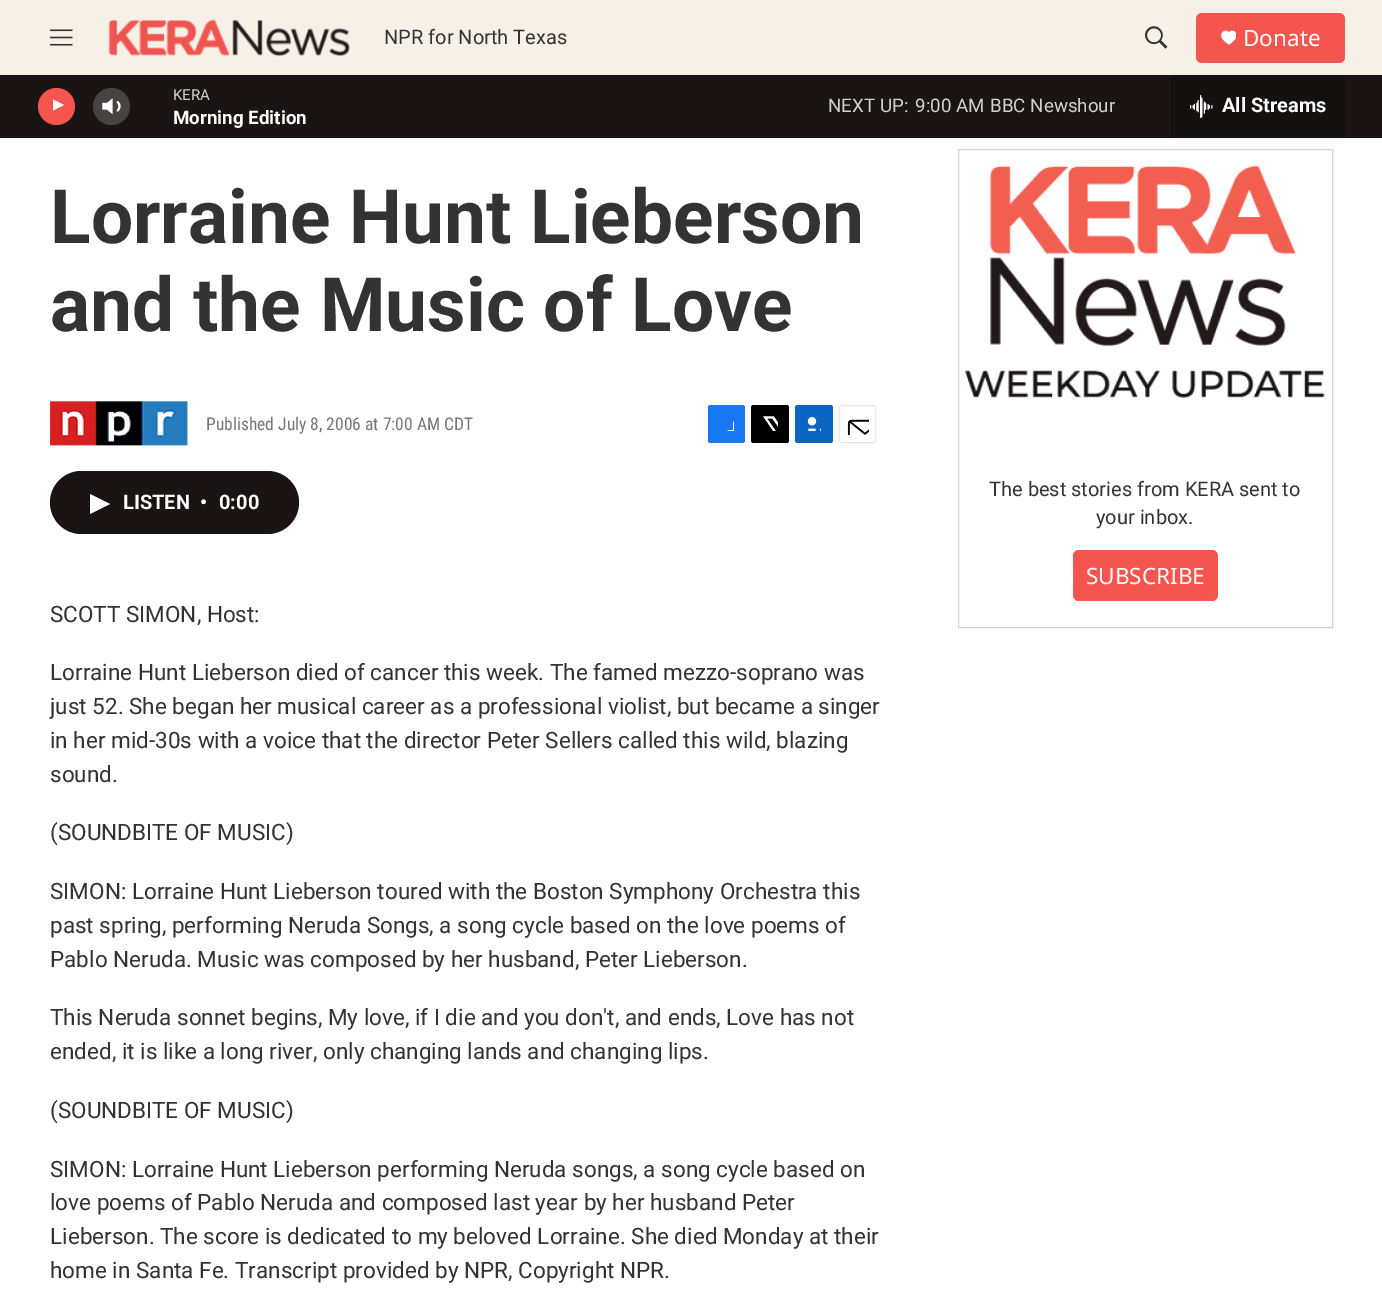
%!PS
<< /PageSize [1382 1303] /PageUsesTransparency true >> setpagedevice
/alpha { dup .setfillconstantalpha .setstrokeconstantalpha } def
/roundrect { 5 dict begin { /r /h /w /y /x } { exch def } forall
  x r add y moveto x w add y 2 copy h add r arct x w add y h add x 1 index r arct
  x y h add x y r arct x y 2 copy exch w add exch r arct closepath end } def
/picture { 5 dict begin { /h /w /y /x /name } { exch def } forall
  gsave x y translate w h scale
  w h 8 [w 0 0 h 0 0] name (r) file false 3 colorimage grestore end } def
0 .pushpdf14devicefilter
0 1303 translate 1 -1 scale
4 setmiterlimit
1 setgray
0 0 1382 1303 rectfill
0.969 0.941 0.906 setrgbcolor
0 0 1382 75 rectfill
0.961 setgray
0 138 1382 1 rectfill
(img1.rgb) 50 29 23 17 picture
(img2.rgb) 108 19 242 38 picture
/Roboto-Regular [20 0 0 -20 0 0] selectfont
0.2 setgray
384 44 moveto (NPR for North Texas) show
(img3.rgb) 1145 26 23 23 picture
0.961 0.333 0.31 setrgbcolor
1196 13 149 50 6 roundrect fill
gsave
1221 30 15 15 rectclip
1 setgray
newpath 1229 33 moveto 1226.5 26.5 1213 35 1229 44.5 curveto 1244.5 35 1231 26.5 1229 33 curveto closepath fill
grestore
/NotoSans-Regular [22.5 0 0 -22.5 0 0] selectfont
1 setgray
1243 46 moveto (Donate) show
0.102 0.078 0.078 setrgbcolor
0 75 1382 63 rectfill
0.961 0.333 0.31 setrgbcolor
newpath 56.5 106.5 18.5 0 360 arc closepath fill
gsave
53 98 14 18 rectclip
1 setgray
newpath 52 99 moveto 64 105 lineto 52 111 lineto closepath fill
grestore
(img4.rgb) 102 98 19 17 picture
0.2 alpha
1 setgray
newpath 111.5 106.5 18.5 0 360 arc closepath fill
/Roboto-Regular [15 0 0 -15 0 0] selectfont
1 alpha
0.82 0.816 0.816 setrgbcolor
173 100 moveto (KERA) show
/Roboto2-Bold [18.75 0 0 -18.75 0 0] selectfont
1 setgray
173 124 moveto (Morning Edition) show
/Roboto-Regular [18.75 0 0 -18.75 0 0] selectfont
0.82 0.816 0.816 setrgbcolor
828 112 moveto (NEXT UP:) show
915 112 moveto (9:00 AM) show
990 112 moveto (BBC Newshour) show
0.082 0.063 0.063 setrgbcolor
1171 75 174 63 rectfill
(img5.rgb) 1190 95 23 23 picture
/Roboto2-Bold [20 0 0 -20 0 0] selectfont
1 setgray
1222 112 moveto (All Streams) show
/Roboto-Bold [75 0 0 -75 0 0] selectfont
0.2 setgray
50 243 moveto (Lorraine Hunt Lieberson) show
50 331 moveto (and the Music of Love) show
(img6.rgb) 50 401 138 45 picture
/RobotoCondensed-Regular [17.5 0 0 -17.5 0 0] selectfont
0.463 setgray
206 430 moveto (Published July 8, 2006 at 7:00 AM CDT) show
0.09 0.471 0.949 setrgbcolor
708 405 37 38 2.5 roundrect fill
(img7.rgb) 727 420 7 11 picture
0 setgray
751 405 38 38 2.5 roundrect fill
(img8.rgb) 763 416 15 15 picture
0.039 0.4 0.757 setrgbcolor
795 405 38 38 2.5 roundrect fill
(img9.rgb) 807 417 14 14 picture
0.902 setgray
839.5 405.5 36 37 2 roundrect stroke
(img10.rgb) 847 419 22 16 picture
0.102 0.078 0.078 setrgbcolor
50 471 249 63 31.5 roundrect fill
1 setgray
newpath 90 494 moveto 110 504 lineto 90 514 lineto closepath fill
/Roboto2-Bold [20 0 0 -20 0 0] selectfont
123 509 moveto (LISTEN) show
200 509 moveto (•) show
219 509 moveto (0:00) show
/Roboto-Regular [22.5 0 0 -22.5 0 0] selectfont
0.2 setgray
50 622 moveto (SCOTT SIMON, Host:) show
50 680 moveto (Lorraine Hunt Lieberson died of cancer this week. The famed mezzo-soprano was) show
50 714 moveto (just 52. She began her musical career as a professional violist, but became a singer) show
50 748 moveto (in her mid-30s with a voice that the director Peter Sellers called this wild, blazing) show
50 782 moveto (sound.) show
50 840 moveto (\(SOUNDBITE OF MUSIC\)) show
50 899 moveto (SIMON: Lorraine Hunt Lieberson toured with the Boston Symphony Orchestra this) show
50 933 moveto (past spring, performing Neruda Songs, a song cycle based on the love poems of) show
50 967 moveto (Pablo Neruda. Music was composed by her husband, Peter Lieberson.) show
50 1025 moveto (This Neruda sonnet begins, My love, if I die and you don't, and ends, Love has not) show
50 1059 moveto (ended, it is like a long river, only changing lands and changing lips.) show
50 1118 moveto (\(SOUNDBITE OF MUSIC\)) show
50 1177 moveto (SIMON: Lorraine Hunt Lieberson performing Neruda songs, a song cycle based on) show
50 1210 moveto (love poems of Pablo Neruda and composed last year by her husband Peter) show
50 1244 moveto (Lieberson. The score is dedicated to my beloved Lorraine. She died Monday at their) show
50 1278 moveto (home in Santa Fe. Transcript provided by NPR, Copyright NPR.) show
0.827 setgray
958.5 149.5 374 478 rectstroke
(img11.rgb) 964 165 361 234 picture
/Roboto-Regular [20 0 0 -20 0 0] selectfont
0.2 setgray
989 496 moveto (The best stories from KERA sent to) show
1096 524 moveto (your inbox.) show
0.961 0.333 0.31 setrgbcolor
1073 550 145 51 6 roundrect fill
/NotoSans-Regular [22.5 0 0 -22.5 0 0] selectfont
1 setgray
1086 584 moveto (SUBSCRIBE) show
.poppdf14devicefilter showpage
